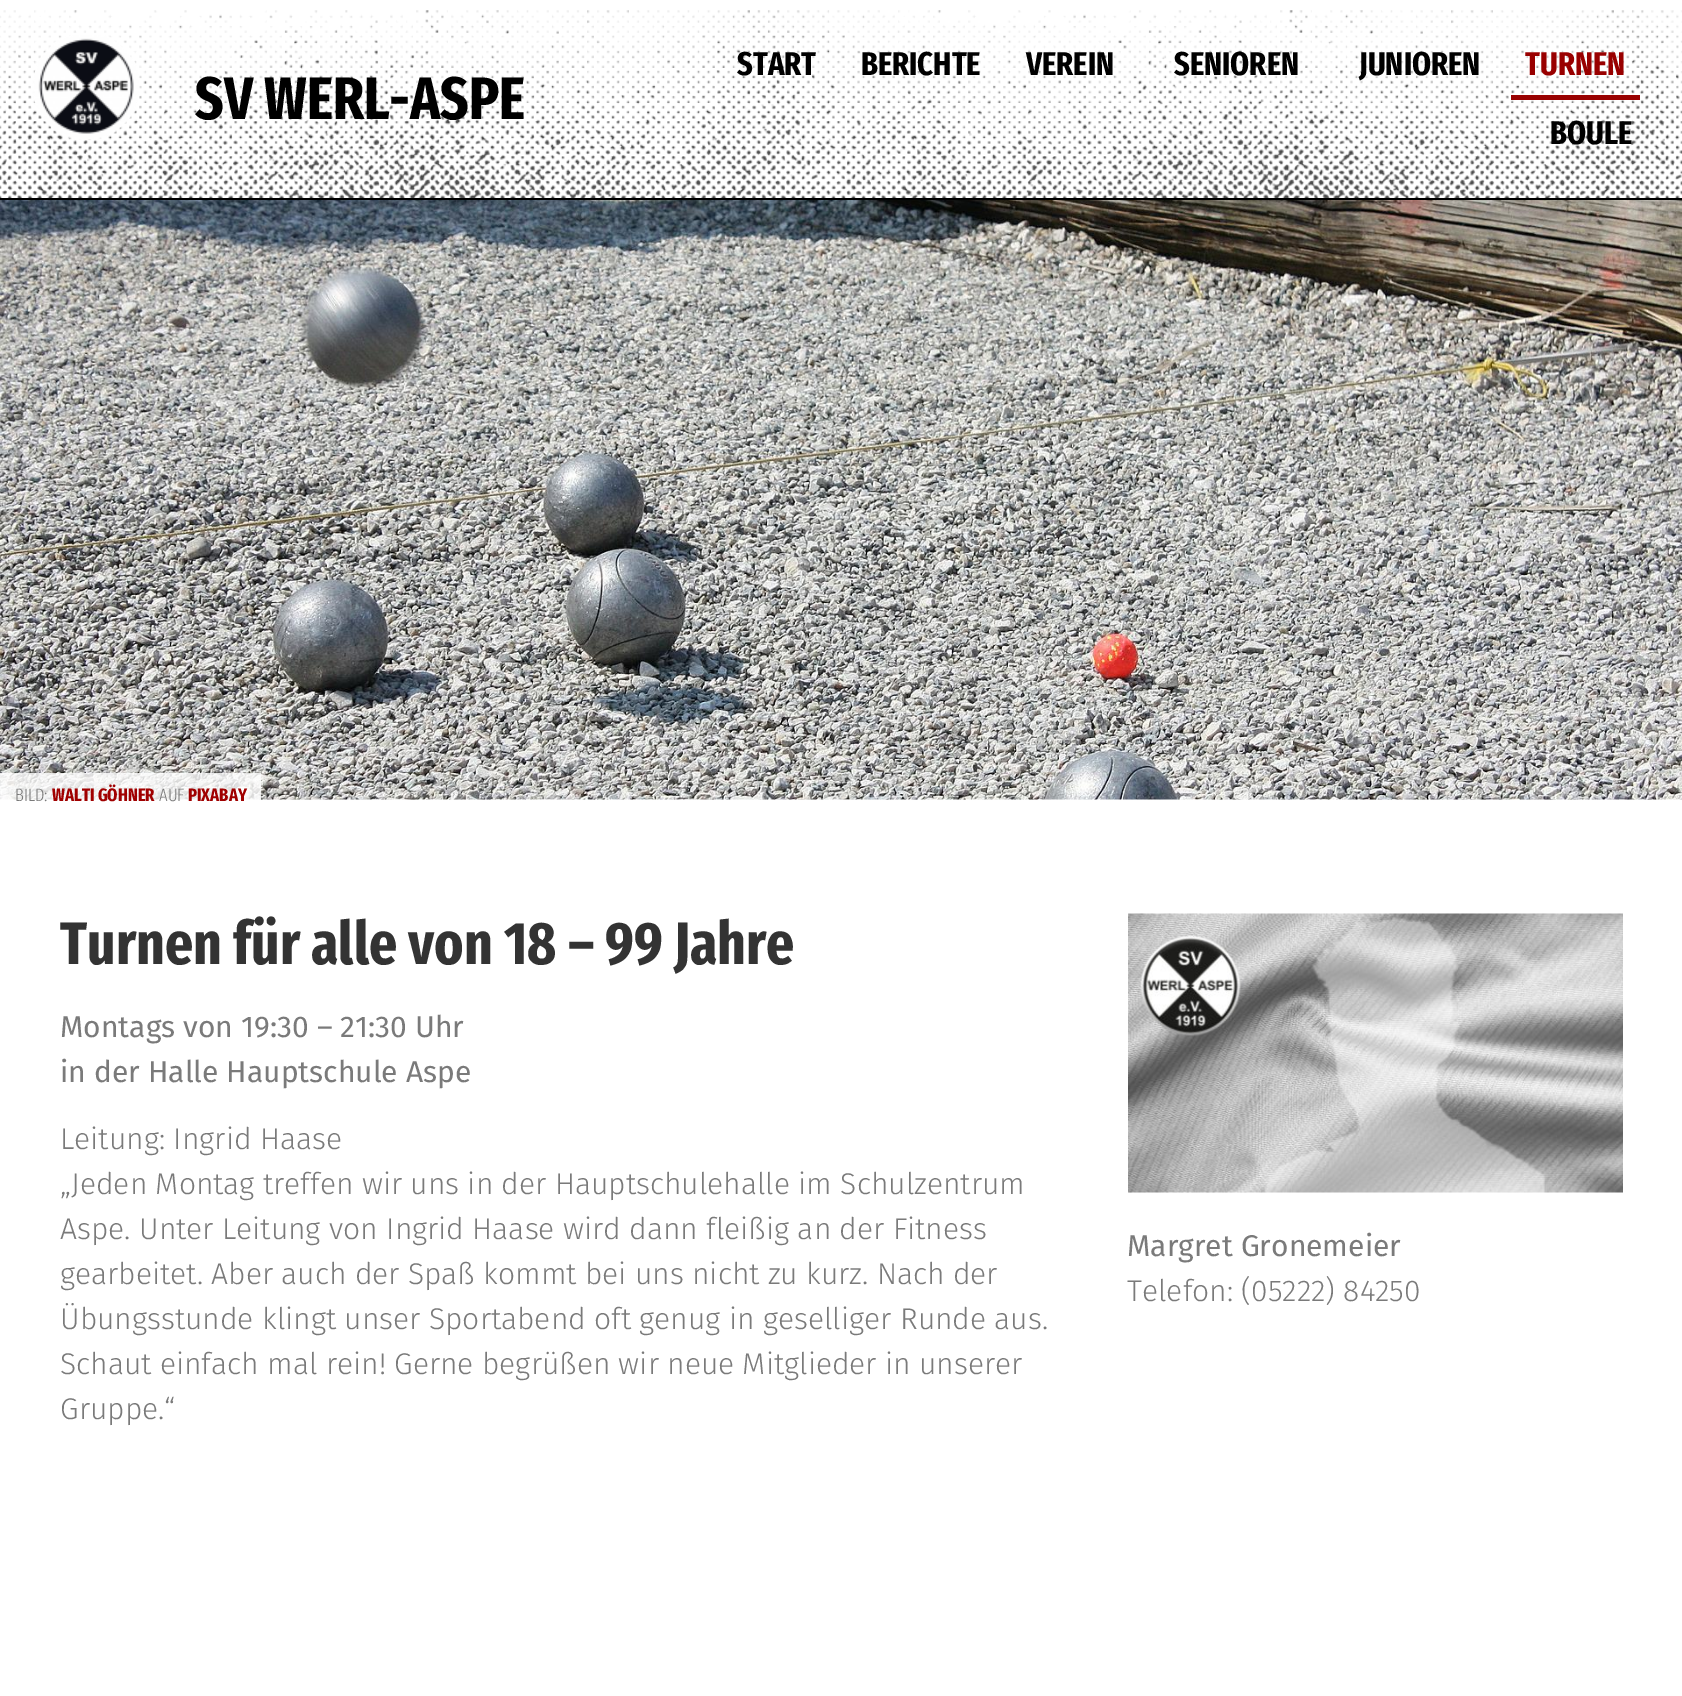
%!PS
<< /PageSize [1682 1696] /PageUsesTransparency true >> setpagedevice
/alpha { dup .setfillconstantalpha .setstrokeconstantalpha } def
/picture { 5 dict begin { /h /w /y /x /name } { exch def } forall
  gsave x y translate w h scale
  w h 8 [w 0 0 h 0 0] name (r) file false 3 colorimage grestore end } def
0 .pushpdf14devicefilter
0 1696 translate 1 -1 scale
4 setmiterlimit
1 setgray
0 0 1682 1696 rectfill
(img1.rgb) 0 10 1682 188 picture
0 setgray
0 198 1682 2 rectfill
(img2.rgb) 33 35 108 107 picture
/FiraSansExtraCondensed-Bold [60 0 0 -60 0 0] selectfont
195 119 moveto (SV WERL-ASPE) show
/FiraSansExtraCondensed-Bold [33 0 0 -33 0 0] selectfont
737 75 moveto (START) show
861 75 moveto (BERICHTE) show
1026 75 moveto (VEREIN) show
1174 75 moveto (SENIOREN) show
1359 75 moveto (JUNIOREN) show
0.6 0 0 setrgbcolor
1525 75 moveto (TURNEN) show
1511 95 129 5 rectfill
0 setgray
1550 144 moveto (BOULE) show
(img3.rgb) 0 200 1682 600 picture
0.82 alpha
1 setgray
0 773 261 27 rectfill
/FiraSansExtraCondensed-Light [18 0 0 -18 0 0] selectfont
1 alpha
0.478 setgray
15 801 moveto (BILD:) show
/FiraSansExtraCondensed-Bold [18 0 0 -18 0 0] selectfont
0.627 0 0 setrgbcolor
52 801 moveto (WALTI GÖHNER) show
/FiraSansExtraCondensed-Light [18 0 0 -18 0 0] selectfont
0.478 setgray
159 801 moveto (AUF) show
/FiraSansExtraCondensed-Bold [18 0 0 -18 0 0] selectfont
0.627 0 0 setrgbcolor
188 801 moveto (PIXABAY) show
/FiraSansExtraCondensed-Bold [60 0 0 -60 0 0] selectfont
0.2 setgray
60 964 moveto (Turnen für alle von 18 – 99 Jahre) show
/FiraSans-Regular [30 0 0 -30 0 0] selectfont
0.478 setgray
60 1037 moveto (Montags von 19:30 – 21:30 Uhr) show
60 1082 moveto (in der Halle Hauptschule Aspe) show
/FiraSans-Light [30 0 0 -30 0 0] selectfont
60 1149 moveto (Leitung: Ingrid Haase) show
60 1194 moveto („Jeden Montag treffen wir uns in der Hauptschulehalle im Schulzentrum) show
60 1239 moveto (Aspe. Unter Leitung von Ingrid Haase wird dann fleißig an der Fitness) show
60 1284 moveto (gearbeitet. Aber auch der Spaß kommt bei uns nicht zu kurz. Nach der) show
60 1329 moveto (Übungsstunde klingt unser Sportabend oft genug in geselliger Runde aus.) show
60 1374 moveto (Schaut einfach mal rein! Gerne begrüßen wir neue Mitglieder in unserer) show
60 1419 moveto (Gruppe.“) show
(img4.rgb) 1128 913 495 280 picture
/FiraSans-Regular [30 0 0 -30 0 0] selectfont
1127 1256 moveto (Margret Gronemeier) show
/FiraSans-Light [30 0 0 -30 0 0] selectfont
1127 1301 moveto (Telefon: \(05222\) 84250) show
.poppdf14devicefilter showpage
